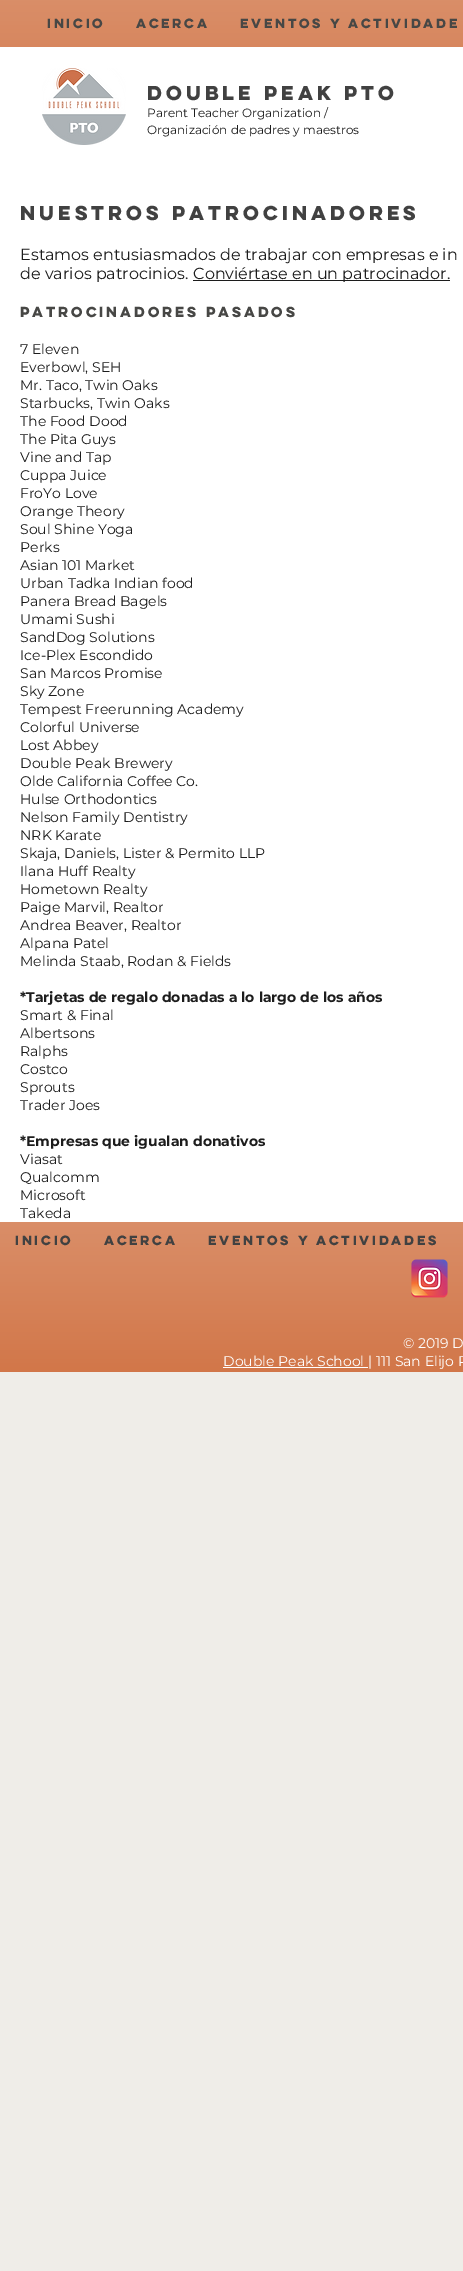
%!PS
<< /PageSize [463 2271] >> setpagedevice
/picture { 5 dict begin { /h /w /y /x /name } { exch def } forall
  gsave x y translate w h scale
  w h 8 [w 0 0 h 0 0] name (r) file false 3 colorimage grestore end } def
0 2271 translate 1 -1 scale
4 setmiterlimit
0.937 0.929 0.91 setrgbcolor
0 0 463 2271 rectfill
0.8 0.4 0.2 setrgbcolor
0 0 463 47 rectfill
(img1.rgb) 0 0 463 47 picture
/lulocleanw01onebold-Bold [12 0 0 -12 0 0] selectfont
0.278 0.278 0.271 setrgbcolor
47 28 moveto (Inicio) show
136 28 moveto (Acerca) show
240 28 moveto (Eventos y Actividade) show
1 setgray
0 47 463 1175 rectfill
(img2.rgb) 42 68 84 77 picture
/lulocleanw01onebold-Bold [18 0 0 -18 0 0] selectfont
0.255 setgray
147 100 moveto (Double Peak PTO) show
/Montserrat-Regular [12 0 0 -12 0 0] selectfont
0.11 setgray
147 117 moveto (Parent Teacher Organization /) show
147 134 moveto (Organización de padres y maestros) show
/lulocleanw01onebold-Bold [18 0 0 -18 0 0] selectfont
0.255 setgray
20 220 moveto (Nuestros Patrocinadores) show
/Montserrat-Regular [16 0 0 -16 0 0] selectfont
0.11 setgray
20 260 moveto (Estamos entusiasmados de trabajar con empresas e in) show
20 279 moveto (de varios patrocinios.) show
193 280 257 1 rectfill
193 279 moveto (Conviértase en un patrocinador.) show
/lulocleanw01onebold-Bold [13 0 0 -13 0 0] selectfont
0.278 0.278 0.271 setrgbcolor
20 317 moveto (Patrocinadores pasados) show
/Montserrat-Regular [14 0 0 -14 0 0] selectfont
0.11 setgray
20 354 moveto (7 Eleven) show
20 372 moveto (Everbowl, SEH) show
20 390 moveto (Mr. Taco, Twin Oaks) show
20 408 moveto (Starbucks, Twin Oaks) show
20 426 moveto (The Food Dood) show
20 444 moveto (The Pita Guys) show
20 462 moveto (Vine and Tap) show
20 480 moveto (Cuppa Juice) show
20 498 moveto (FroYo Love) show
20 516 moveto (Orange Theory) show
20 534 moveto (Soul Shine Yoga) show
20 552 moveto (Perks) show
20 570 moveto (Asian 101 Market) show
20 588 moveto (Urban Tadka Indian food) show
20 606 moveto (Panera Bread Bagels) show
20 624 moveto (Umami Sushi) show
20 642 moveto (SandDog Solutions) show
20 660 moveto (Ice-Plex Escondido) show
20 678 moveto (San Marcos Promise) show
20 696 moveto (Sky Zone) show
20 714 moveto (Tempest Freerunning Academy) show
20 732 moveto (Colorful Universe) show
20 750 moveto (Lost Abbey) show
20 768 moveto (Double Peak Brewery) show
20 786 moveto (Olde California Coffee Co.) show
20 804 moveto (Hulse Orthodontics) show
20 822 moveto (Nelson Family Dentistry) show
20 840 moveto (NRK Karate) show
20 858 moveto (Skaja, Daniels, Lister & Permito LLP) show
20 876 moveto (Ilana Huff Realty) show
20 894 moveto (Hometown Realty) show
20 912 moveto (Paige Marvil, Realtor) show
20 930 moveto (Andrea Beaver, Realtor) show
20 948 moveto (Alpana Patel) show
20 966 moveto (Melinda Staab, Rodan & Fields) show
/Montserrat-Bold [14 0 0 -14 0 0] selectfont
20 1002 moveto (*Tarjetas de regalo donadas a lo largo de los años) show
/Montserrat-Regular [14 0 0 -14 0 0] selectfont
20 1020 moveto (Smart & Final) show
20 1038 moveto (Albertsons) show
20 1056 moveto (Ralphs) show
20 1074 moveto (Costco) show
20 1092 moveto (Sprouts) show
20 1110 moveto (Trader Joes) show
/Montserrat-Bold [14 0 0 -14 0 0] selectfont
20 1146 moveto (*Empresas que igualan donativos) show
/Montserrat-Regular [14 0 0 -14 0 0] selectfont
20 1164 moveto (Viasat) show
20 1182 moveto (Qualcomm) show
20 1200 moveto (Microsoft) show
20 1218 moveto (Takeda) show
0.8 0.4 0.2 setrgbcolor
0 1222 463 150 rectfill
(img3.rgb) 0 1222 463 150 picture
/lulocleanw01onebold-Bold [12 0 0 -12 0 0] selectfont
0.255 setgray
15 1245 moveto (Inicio) show
104 1245 moveto (Acerca) show
208 1245 moveto (Eventos y Actividades) show
(img4.rgb) 411 1259 37 39 picture
/Montserrat-Regular [14 0 0 -14 0 0] selectfont
1 setgray
403 1348 moveto (© 2019 D) show
223 1367 145 1 rectfill
223 1366 moveto (Double Peak School | 111 San Elijo R) show
showpage
